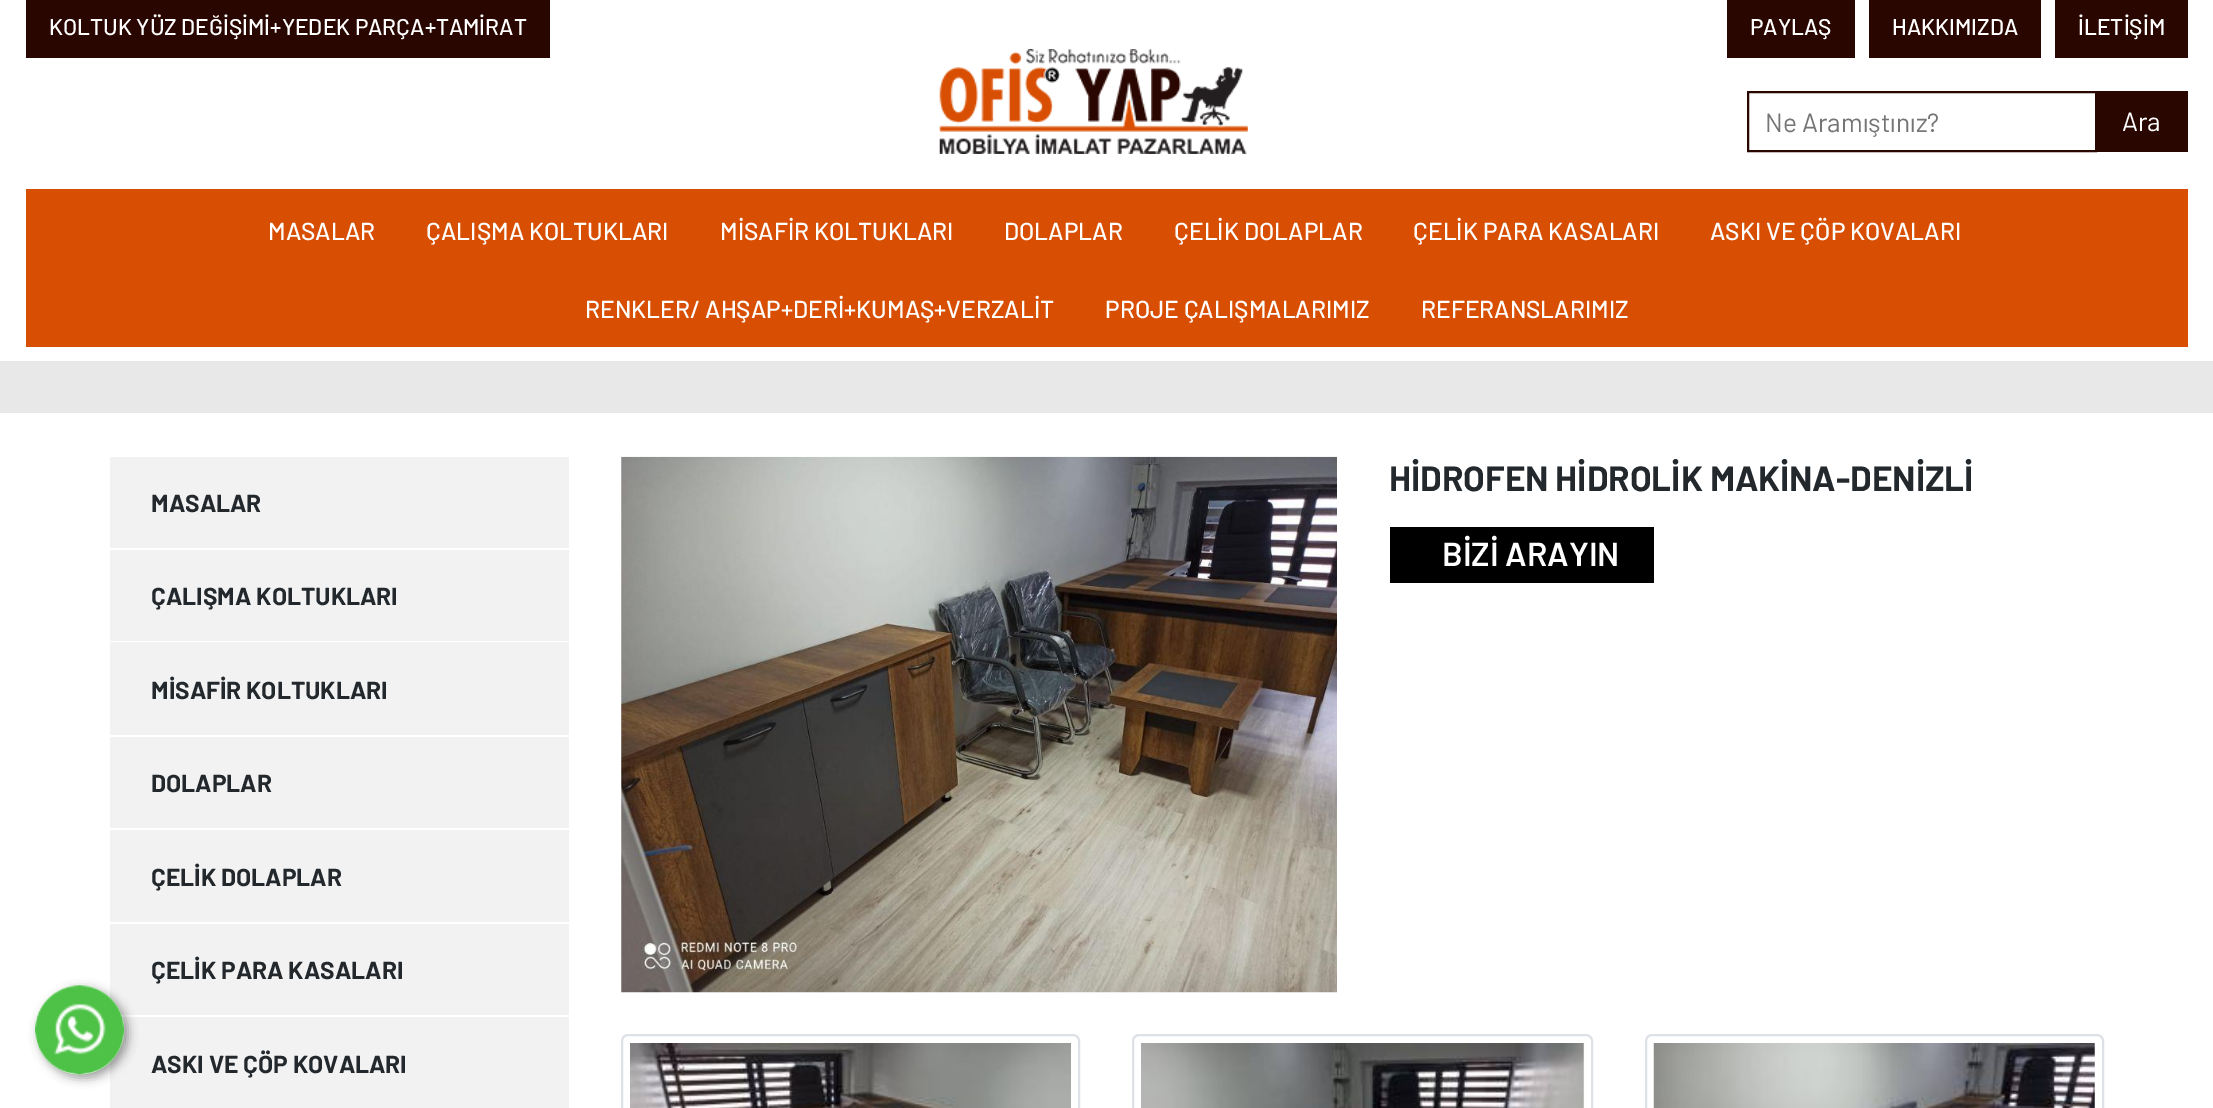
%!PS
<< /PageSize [2213 1108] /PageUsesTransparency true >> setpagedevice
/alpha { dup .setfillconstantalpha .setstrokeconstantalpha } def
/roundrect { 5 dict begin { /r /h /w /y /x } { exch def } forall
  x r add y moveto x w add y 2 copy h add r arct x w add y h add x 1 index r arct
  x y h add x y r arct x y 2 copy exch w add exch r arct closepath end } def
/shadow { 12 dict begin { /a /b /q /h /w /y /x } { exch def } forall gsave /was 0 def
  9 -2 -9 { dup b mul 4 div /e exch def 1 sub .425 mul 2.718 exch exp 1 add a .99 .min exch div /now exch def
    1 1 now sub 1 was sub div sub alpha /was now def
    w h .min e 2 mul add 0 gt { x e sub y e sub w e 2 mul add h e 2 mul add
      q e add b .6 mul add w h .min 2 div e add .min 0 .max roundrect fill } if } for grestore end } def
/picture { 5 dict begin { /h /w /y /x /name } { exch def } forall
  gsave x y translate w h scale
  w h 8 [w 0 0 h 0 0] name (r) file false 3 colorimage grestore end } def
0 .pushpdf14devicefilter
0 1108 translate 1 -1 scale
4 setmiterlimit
1 setgray
0 0 2213 1108 rectfill
0.161 0.024 0 setrgbcolor
26 0 524 58 rectfill
/Barlow-Medium [22.75 0 0 -22.75 0 0] selectfont
1 setgray
49 35 moveto (KOLTUK YÜZ DEĞİŞİMİ+YEDEK PARÇA+TAMİRAT) show
0.161 0.024 0 setrgbcolor
1727 0 128 58 rectfill
1 setgray
1750 35 moveto (PAYLAŞ) show
0.161 0.024 0 setrgbcolor
1869 0 172 58 rectfill
1 setgray
1892 35 moveto (HAKKIMIZDA) show
0.161 0.024 0 setrgbcolor
2055 0 133 58 rectfill
1 setgray
2078 35 moveto (İLETİŞİM) show
(img1.rgb) 939 49 309 105 picture
0.161 0.024 0 setrgbcolor
2 setlinewidth
1748 92 348 59 rectstroke
/Barlow-Regular [26.25 0 0 -26.25 0 0] selectfont
0.459 setgray
1765 132 moveto (Ne Aramıştınız?) show
0.161 0.024 0 setrgbcolor
2097 91 91 61 rectfill
1 setgray
2122 131 moveto (Ara) show
0.847 0.31 0.012 setrgbcolor
26 189 2162 158 rectfill
/Barlow-Medium [24.5 0 0 -24.5 0 0] selectfont
1 setgray
268 240 moveto (MASALAR) show
426 240 moveto (ÇALIŞMA KOLTUKLARI) show
720 240 moveto (MİSAFİR KOLTUKLARI) show
1004 240 moveto (DOLAPLAR) show
1174 240 moveto (ÇELİK DOLAPLAR) show
1413 240 moveto (ÇELİK PARA KASALARI) show
1710 240 moveto (ASKI VE ÇÖP KOVALARI) show
585 318 moveto (RENKLER/ AHŞAP+DERİ+KUMAŞ+VERZALİT) show
1105 318 moveto (PROJE ÇALIŞMALARIMIZ) show
1421 318 moveto (REFERANSLARIMIZ) show
0.91 setgray
0 361 2213 52 rectfill
0.949 setgray
110 924 459 91 rectfill
110 1017 459 91 rectfill
gsave
newpath 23 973 moveto 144 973 lineto 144 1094 lineto 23 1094 lineto closepath 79.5 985 moveto 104 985 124 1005 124 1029.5 curveto 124 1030.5 lineto 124 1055 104 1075 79.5 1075 curveto 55 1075 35 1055 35 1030.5 curveto 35 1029.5 lineto 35 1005 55 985 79.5 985 curveto closepath eoclip newpath
0 setgray
39 989 89 89 44.5 5 0.4 shadow
grestore
(img2.rgb) 35 985 90 91 picture
110 457 459 91 rectfill
/Barlow-Bold [24.5 0 0 -24.5 0 0] selectfont
0.137 0.157 0.176 setrgbcolor
151 512 moveto (MASALAR) show
0.949 setgray
110 550 459 91 rectfill
0.137 0.157 0.176 setrgbcolor
151 605 moveto (ÇALIŞMA KOLTUKLARI) show
0.949 setgray
110 642 459 93 rectfill
0.137 0.157 0.176 setrgbcolor
151 699 moveto (MİSAFİR KOLTUKLARI) show
0.949 setgray
110 737 459 91 rectfill
0.137 0.157 0.176 setrgbcolor
151 792 moveto (DOLAPLAR) show
0.949 setgray
110 830 459 92 rectfill
0.137 0.157 0.176 setrgbcolor
151 886 moveto (ÇELİK DOLAPLAR) show
151 979 moveto (ÇELİK PARA KASALARI) show
151 1073 moveto (ASKI VE ÇÖP KOVALARI) show
(img3.rgb) 621 456 716 537 picture
/Barlow-Bold [35 0 0 -35 0 0] selectfont
1389 491 moveto (HİDROFEN HİDROLİK MAKİNA-DENİZLİ) show
0 setgray
1390 527 264 56 rectfill
/Barlow-SemiBold [33.25 0 0 -33.25 0 0] selectfont
1 setgray
1442 566 moveto (BİZİ ARAYIN) show
0.871 0.886 0.902 setrgbcolor
622 1035 457 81 6 roundrect stroke
(img4.rgb) 630 1043 441 65 picture
1133 1035 459 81 6 roundrect stroke
(img5.rgb) 1141 1043 443 65 picture
1646 1035 457 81 6 roundrect stroke
(img6.rgb) 1653 1043 442 65 picture
.poppdf14devicefilter showpage
